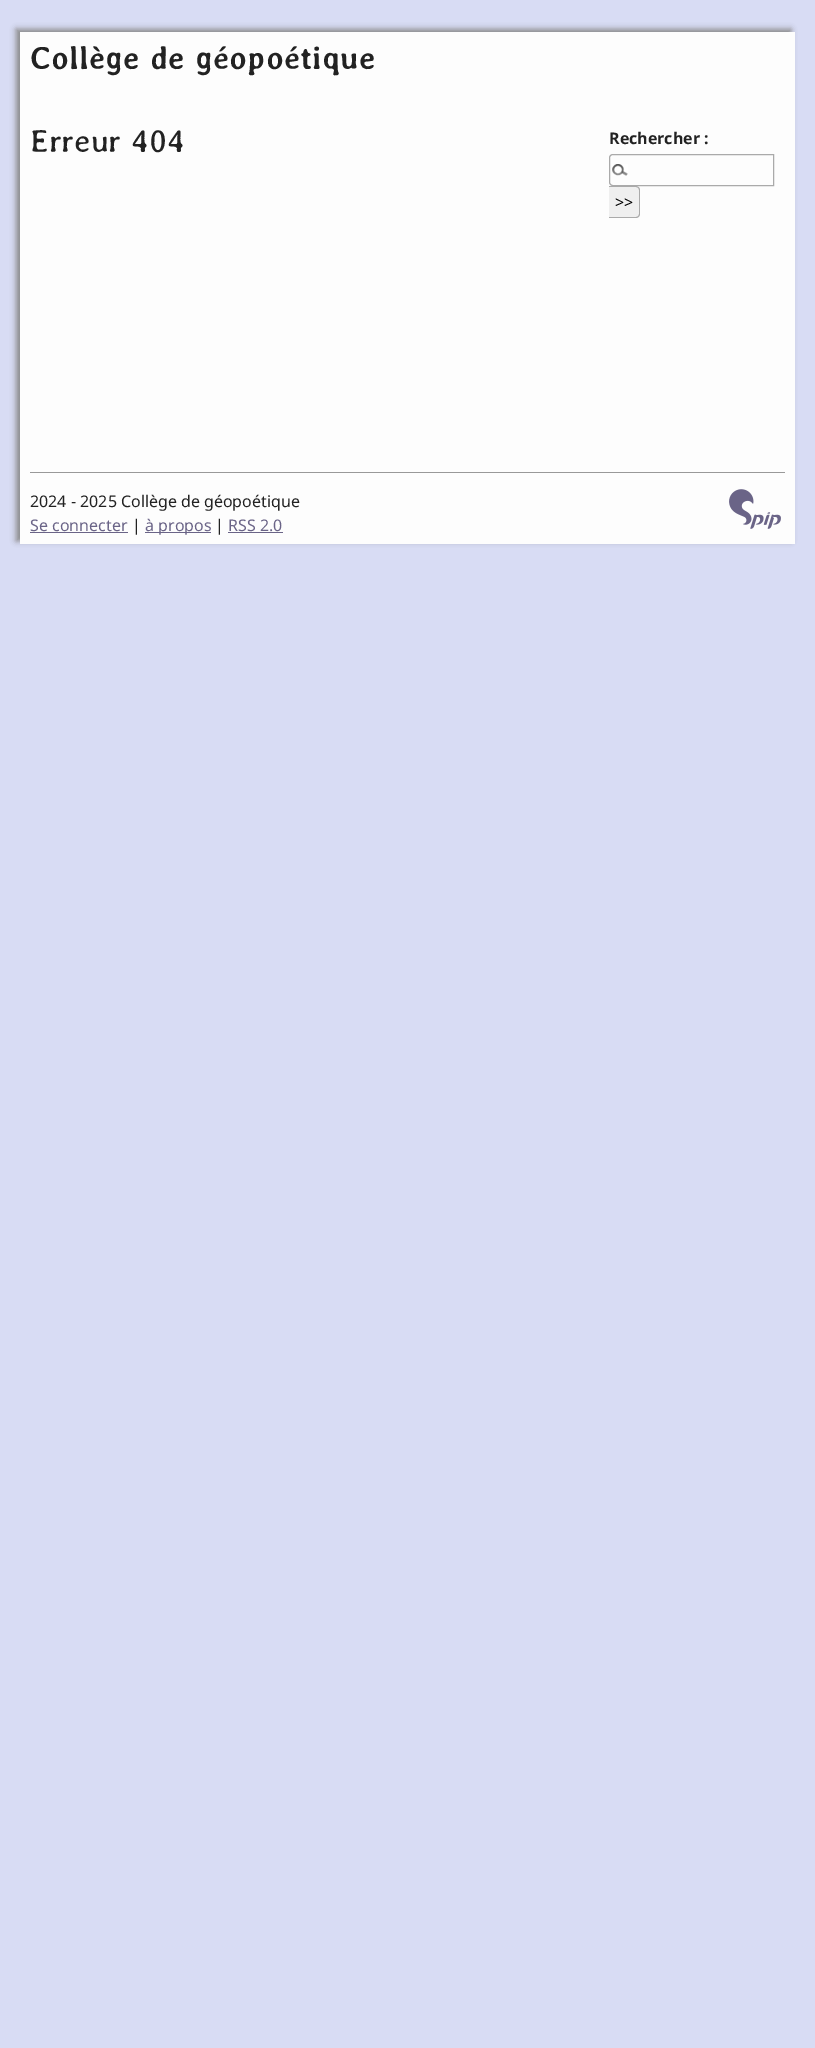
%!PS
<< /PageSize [815 2048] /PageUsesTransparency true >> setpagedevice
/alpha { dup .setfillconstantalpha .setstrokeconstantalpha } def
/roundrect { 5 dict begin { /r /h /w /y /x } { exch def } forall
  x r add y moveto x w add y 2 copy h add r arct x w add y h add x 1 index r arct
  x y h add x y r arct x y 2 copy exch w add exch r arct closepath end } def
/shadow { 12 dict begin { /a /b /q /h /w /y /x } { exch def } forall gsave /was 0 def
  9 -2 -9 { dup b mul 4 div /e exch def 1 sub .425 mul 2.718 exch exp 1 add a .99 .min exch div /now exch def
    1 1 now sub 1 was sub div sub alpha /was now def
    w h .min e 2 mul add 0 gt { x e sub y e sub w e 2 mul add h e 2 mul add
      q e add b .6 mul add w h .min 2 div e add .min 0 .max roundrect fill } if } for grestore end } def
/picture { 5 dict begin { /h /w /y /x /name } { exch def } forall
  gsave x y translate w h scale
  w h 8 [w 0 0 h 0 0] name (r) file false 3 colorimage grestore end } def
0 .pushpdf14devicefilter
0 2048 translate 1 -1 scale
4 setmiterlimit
0.847 0.863 0.957 setrgbcolor
0 0 815 2048 rectfill
0.533 setgray
16 29 775 512 0 3 1 shadow
0.992 setgray
20 32 775 512 rectfill
/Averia-Bold [32 0 0 -32 0 0] selectfont
0.133 setgray
30 69 moveto (Collège de géopoétique) show
/Averia-Regular [32 0 0 -32 0 0] selectfont
30 152 moveto (Erreur 404) show
/NotoSans-Bold [16 0 0 -16 0 0] selectfont
609 144 moveto (Rechercher :) show
(img1.rgb) 612 164 16 12 picture
0.667 setgray
newpath 613 154.5 moveto 773.5 154.5 lineto 773.5 185.5 lineto 613 185.5 lineto 611 185.5 609.5 184 609.5 182 curveto 609.5 158 lineto 609.5 156 611 154.5 613 154.5 curveto closepath stroke
0.937 setgray
newpath 609 186 moveto 636 186 lineto 638 186 640 188 640 190 curveto 640 214 lineto 640 216 638 218 636 218 curveto 609 218 lineto closepath fill
0.667 setgray
newpath 609 186 moveto 636 186 lineto 638 186 640 188 640 190 curveto 640 214 lineto 640 216 638 218 636 218 curveto 609 218 lineto closepath 609 187 moveto 636 187 lineto 637.5 187 639 188.5 639 190 curveto 639 214 lineto 639 215.5 637.5 217 636 217 curveto 609 217 lineto closepath eofill
/NotoSans-Regular [16 0 0 -16 0 0] selectfont
0 setgray
615 208 moveto (>>) show
0.6 setgray
30 472 755 1 rectfill
0.133 setgray
30 507 moveto (2024 - 2025 Collège de géopoétique) show
0.416 0.392 0.529 setrgbcolor
30 531 moveto (Se connecter) show
30 532 98 1 rectfill
0.133 setgray
132 531 moveto (|) show
0.416 0.392 0.529 setrgbcolor
145 532 66 1 rectfill
145 531 moveto (à propos) show
0.133 setgray
215 531 moveto (|) show
0.416 0.392 0.529 setrgbcolor
228 531 moveto (RSS 2.0) show
228 532 55 1 rectfill
(img2.rgb) 729 489 52 40 picture
.poppdf14devicefilter showpage
